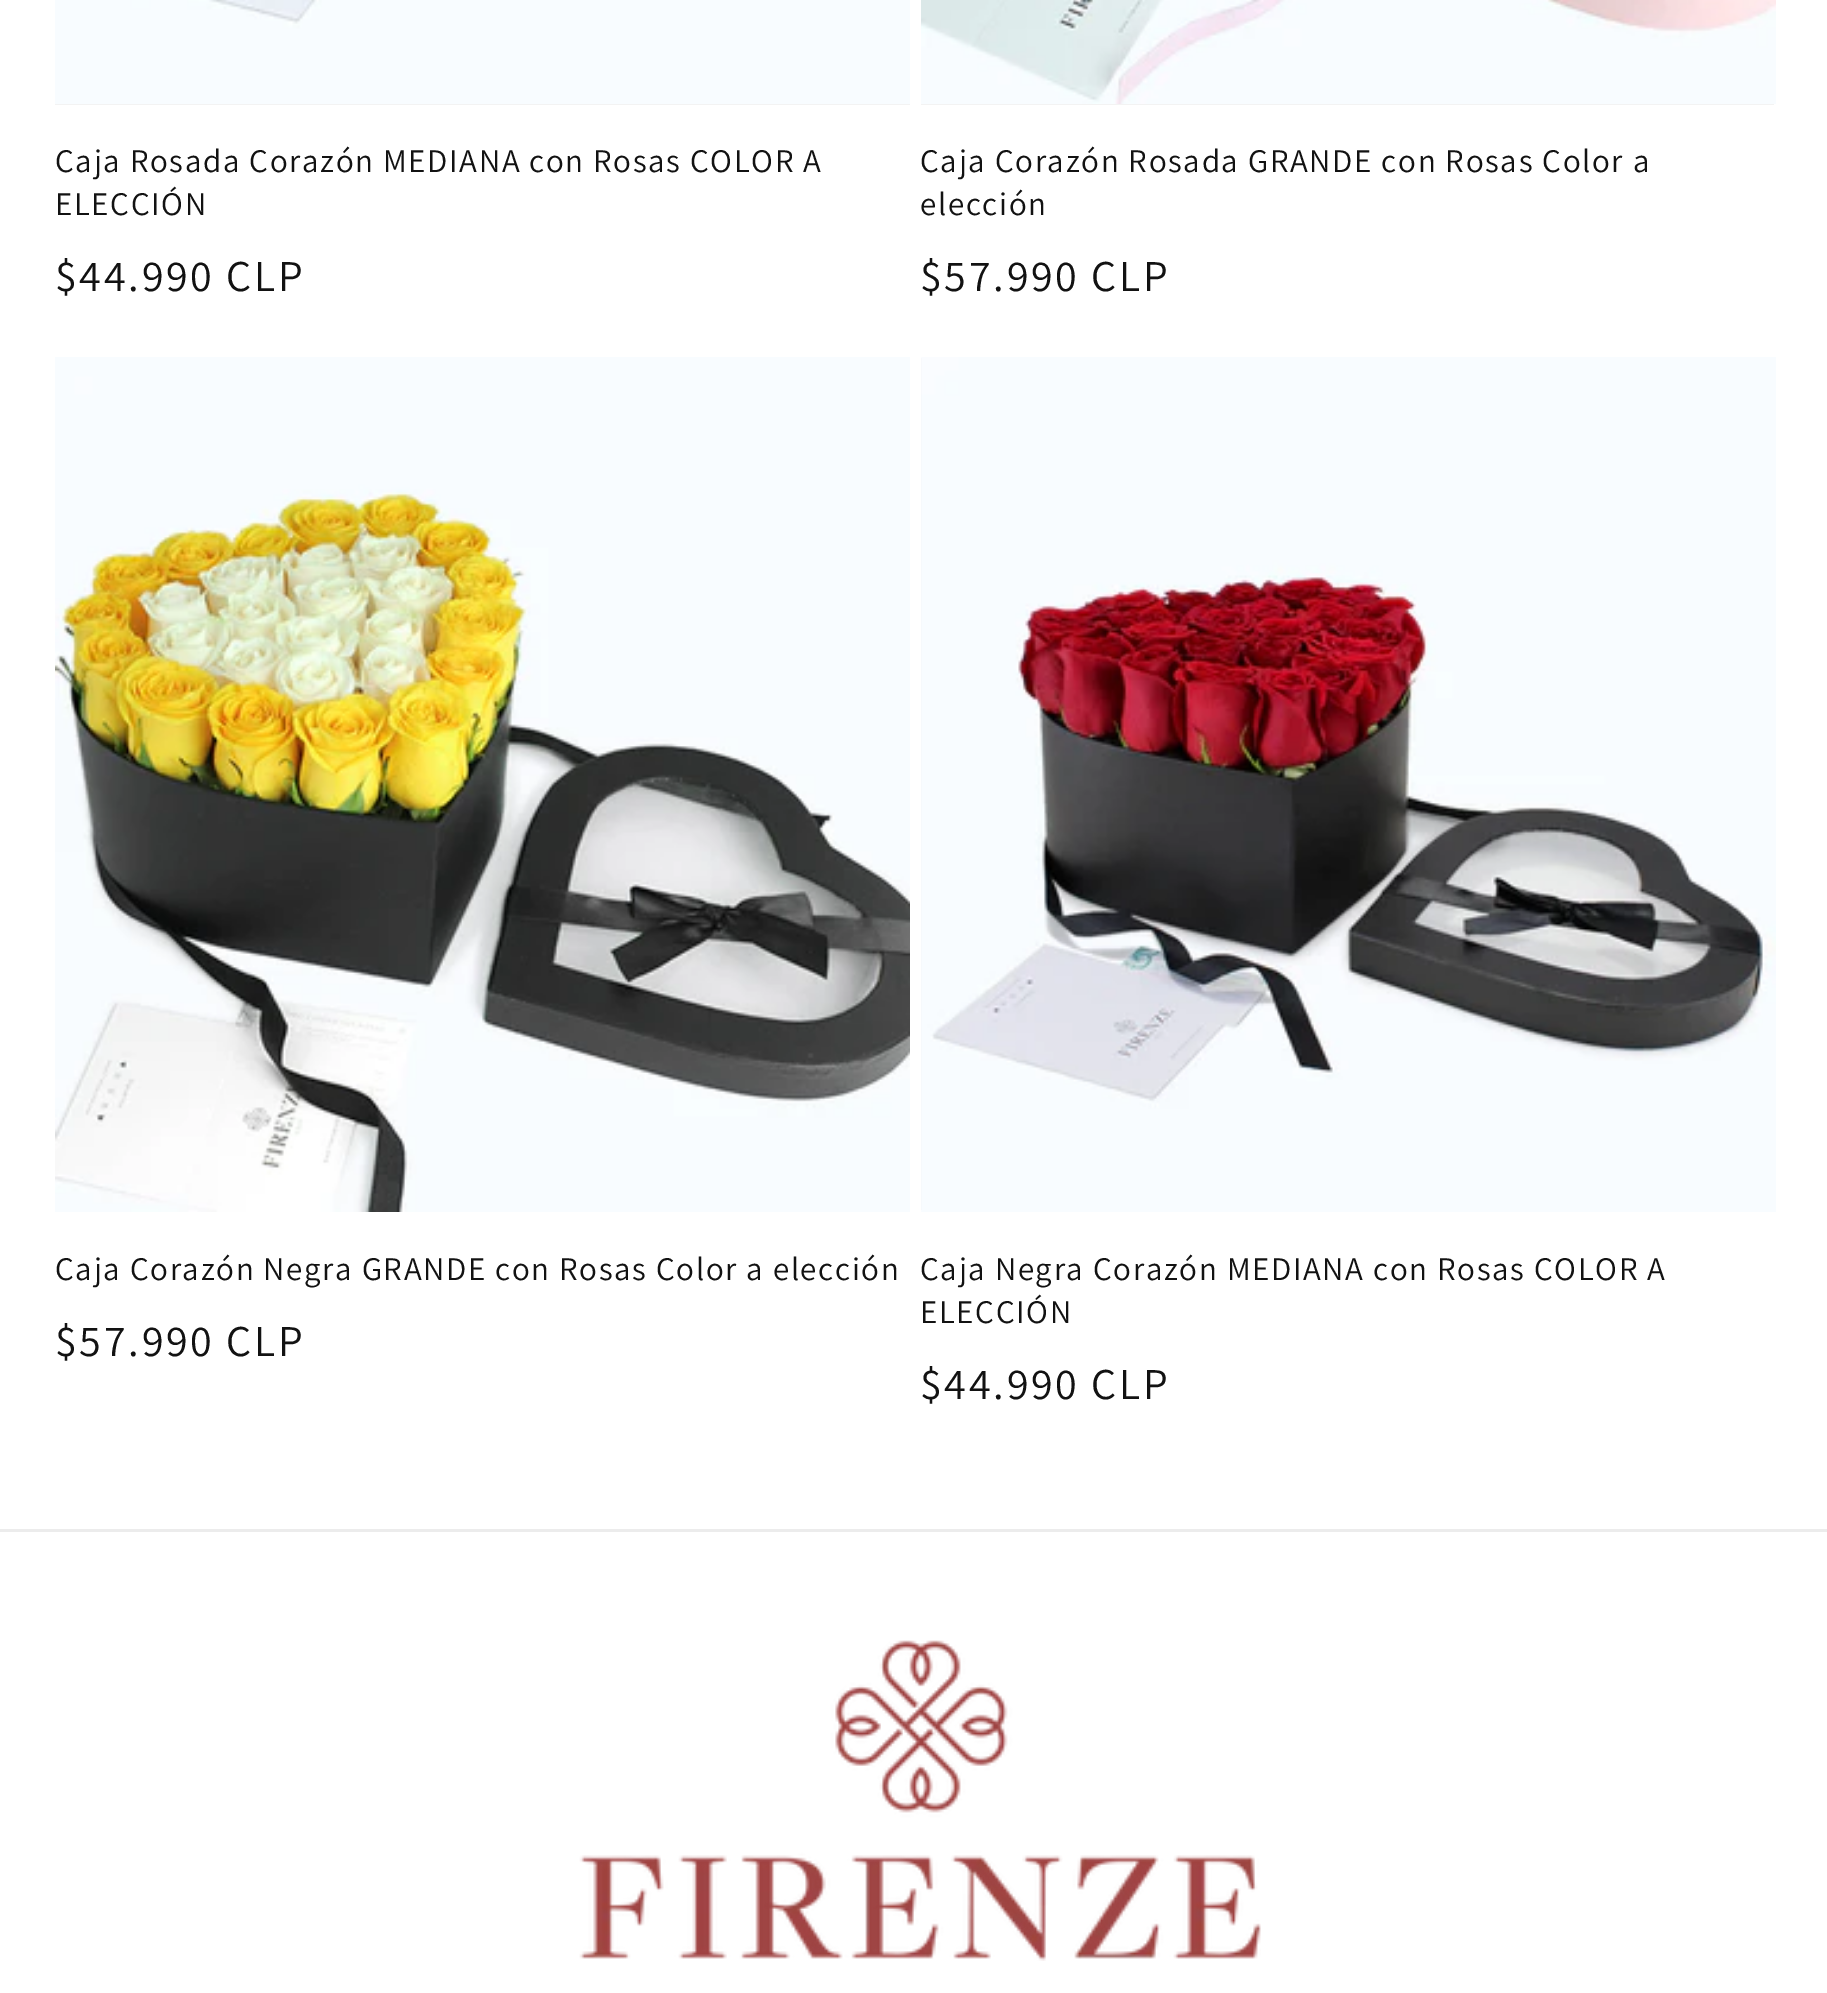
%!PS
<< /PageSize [1827 1993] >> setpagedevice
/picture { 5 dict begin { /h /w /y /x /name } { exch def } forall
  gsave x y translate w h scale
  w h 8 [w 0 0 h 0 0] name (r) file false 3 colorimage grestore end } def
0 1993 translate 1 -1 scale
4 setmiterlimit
1 setgray
0 0 1827 1993 rectfill
0.953 setgray
55 104 855 1 rectfill
(img1.rgb) 55 0 855 104 picture
/Assistant-Regular [33 0 0 -33 0 0] selectfont
0.071 setgray
55 172 moveto 1.65 0 (Caja Rosada Corazón MEDIANA con Rosas COLOR A) ashow
55 215 moveto 1.65 0 (ELECCIÓN) ashow
/Assistant-Regular [44 0 0 -44 0 0] selectfont
55 291 moveto 2.75 0 ($44.990 CLP) ashow
0.953 setgray
921 104 853 1 rectfill
(img2.rgb) 921 0 855 104 picture
/Assistant-Regular [33 0 0 -33 0 0] selectfont
0.071 setgray
920 172 moveto 1.65 0 (Caja Corazón Rosada GRANDE con Rosas Color a) ashow
920 215 moveto 1.65 0 (elección) ashow
/Assistant-Regular [44 0 0 -44 0 0] selectfont
920 291 moveto 2.75 0 ($57.990 CLP) ashow
(img3.rgb) 55 357 855 855 picture
/Assistant-Regular [33 0 0 -33 0 0] selectfont
55 1280 moveto 1.65 0 (Caja Corazón Negra GRANDE con Rosas Color a elección) ashow
/Assistant-Regular [44 0 0 -44 0 0] selectfont
55 1356 moveto 2.75 0 ($57.990 CLP) ashow
(img4.rgb) 921 357 855 855 picture
/Assistant-Regular [33 0 0 -33 0 0] selectfont
920 1280 moveto 1.65 0 (Caja Negra Corazón MEDIANA con Rosas COLOR A) ashow
920 1323 moveto 1.65 0 (ELECCIÓN) ashow
/Assistant-Regular [44 0 0 -44 0 0] selectfont
920 1399 moveto 2.75 0 ($44.990 CLP) ashow
0.925 setgray
0 1529 1827 3 rectfill
(img5.rgb) 579 1640 682 321 picture
showpage
